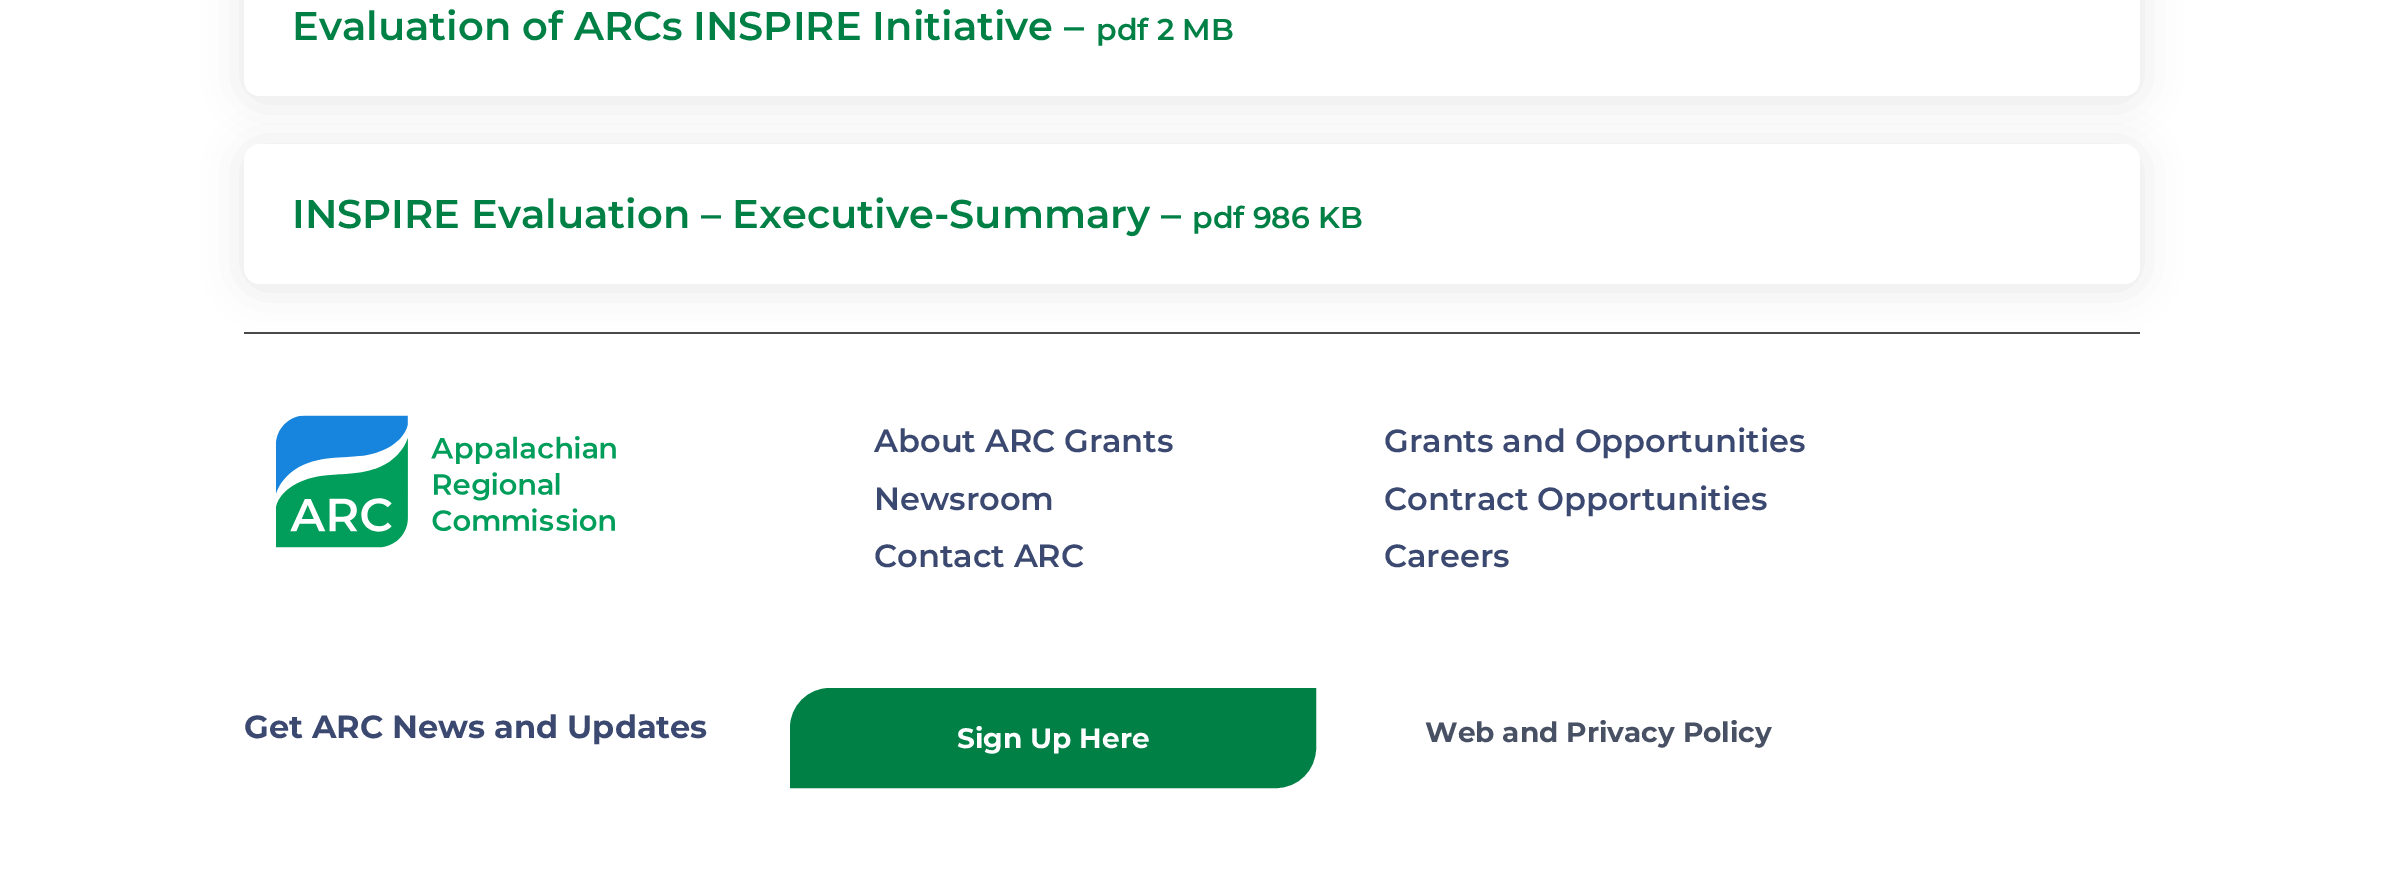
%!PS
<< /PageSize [2383 876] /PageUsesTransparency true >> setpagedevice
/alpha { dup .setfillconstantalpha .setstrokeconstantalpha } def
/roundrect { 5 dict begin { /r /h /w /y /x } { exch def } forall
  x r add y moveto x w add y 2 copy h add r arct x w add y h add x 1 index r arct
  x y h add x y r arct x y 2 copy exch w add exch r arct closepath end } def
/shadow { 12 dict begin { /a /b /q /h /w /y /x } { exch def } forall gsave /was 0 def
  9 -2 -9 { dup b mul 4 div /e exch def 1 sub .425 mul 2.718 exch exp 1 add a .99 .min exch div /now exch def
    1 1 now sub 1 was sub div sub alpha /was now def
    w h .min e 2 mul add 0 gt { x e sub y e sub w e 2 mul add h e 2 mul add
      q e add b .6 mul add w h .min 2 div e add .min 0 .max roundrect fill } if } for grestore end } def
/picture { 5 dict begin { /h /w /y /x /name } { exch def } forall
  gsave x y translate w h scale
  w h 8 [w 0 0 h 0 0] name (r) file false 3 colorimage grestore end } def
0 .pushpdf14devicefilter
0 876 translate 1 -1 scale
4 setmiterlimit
1 setgray
0 0 2383 876 rectfill
0 setgray
244 -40 1896 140 16 20 0.1 shadow
1 setgray
244 -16 1896 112 16 roundrect fill
/Montserrat-SemiBold [40 0 0 -40 0 0] selectfont
0 0.502 0.271 setrgbcolor
292 40 moveto (Evaluation of ARCs INSPIRE Initiative –) show
/Montserrat-SemiBold [30 0 0 -30 0 0] selectfont
1096 40 moveto (pdf 2 MB) show
0 setgray
244 148 1896 140 16 20 0.1 shadow
1 setgray
244 144 1896 140 16 roundrect fill
/Montserrat-SemiBold [40 0 0 -40 0 0] selectfont
0 0.502 0.271 setrgbcolor
292 228 moveto (INSPIRE Evaluation – Executive-Summary –) show
/Montserrat-SemiBold [30 0 0 -30 0 0] selectfont
1192 228 moveto (pdf 986 KB) show
0.278 0.286 0.294 setrgbcolor
244 332 1896 2 rectfill
(img1.rgb) 276 415 340 133 picture
/Montserrat-SemiBold [32 0 0 -32 0 0] selectfont
0.231 0.286 0.443 setrgbcolor
874 452 moveto (About ARC Grants) show
1384 452 moveto (Grants and Opportunities) show
874 510 moveto (Newsroom) show
1384 510 moveto (Contract Opportunities) show
874 567 moveto (Contact ARC) show
1384 567 moveto (Careers) show
/Montserrat-Bold [32 0 0 -32 0 0] selectfont
244 738 moveto (Get ARC News and Updates) show
0 0.502 0.271 setrgbcolor
newpath 830 690 moveto 1314 690 lineto 1314 748 lineto 1314 769 1297 786 1276 786 curveto 792 786 lineto 792 728 lineto 792 707 809 690 830 690 curveto closepath gsave fill grestore
4 setlinewidth
stroke
/Montserrat-Bold [28 0 0 -28 0 0] selectfont
1 setgray
957 748 moveto (Sign Up Here) show
0.282 0.314 0.392 setrgbcolor
1425 742 moveto (Web and Privacy Policy) show
.poppdf14devicefilter showpage
